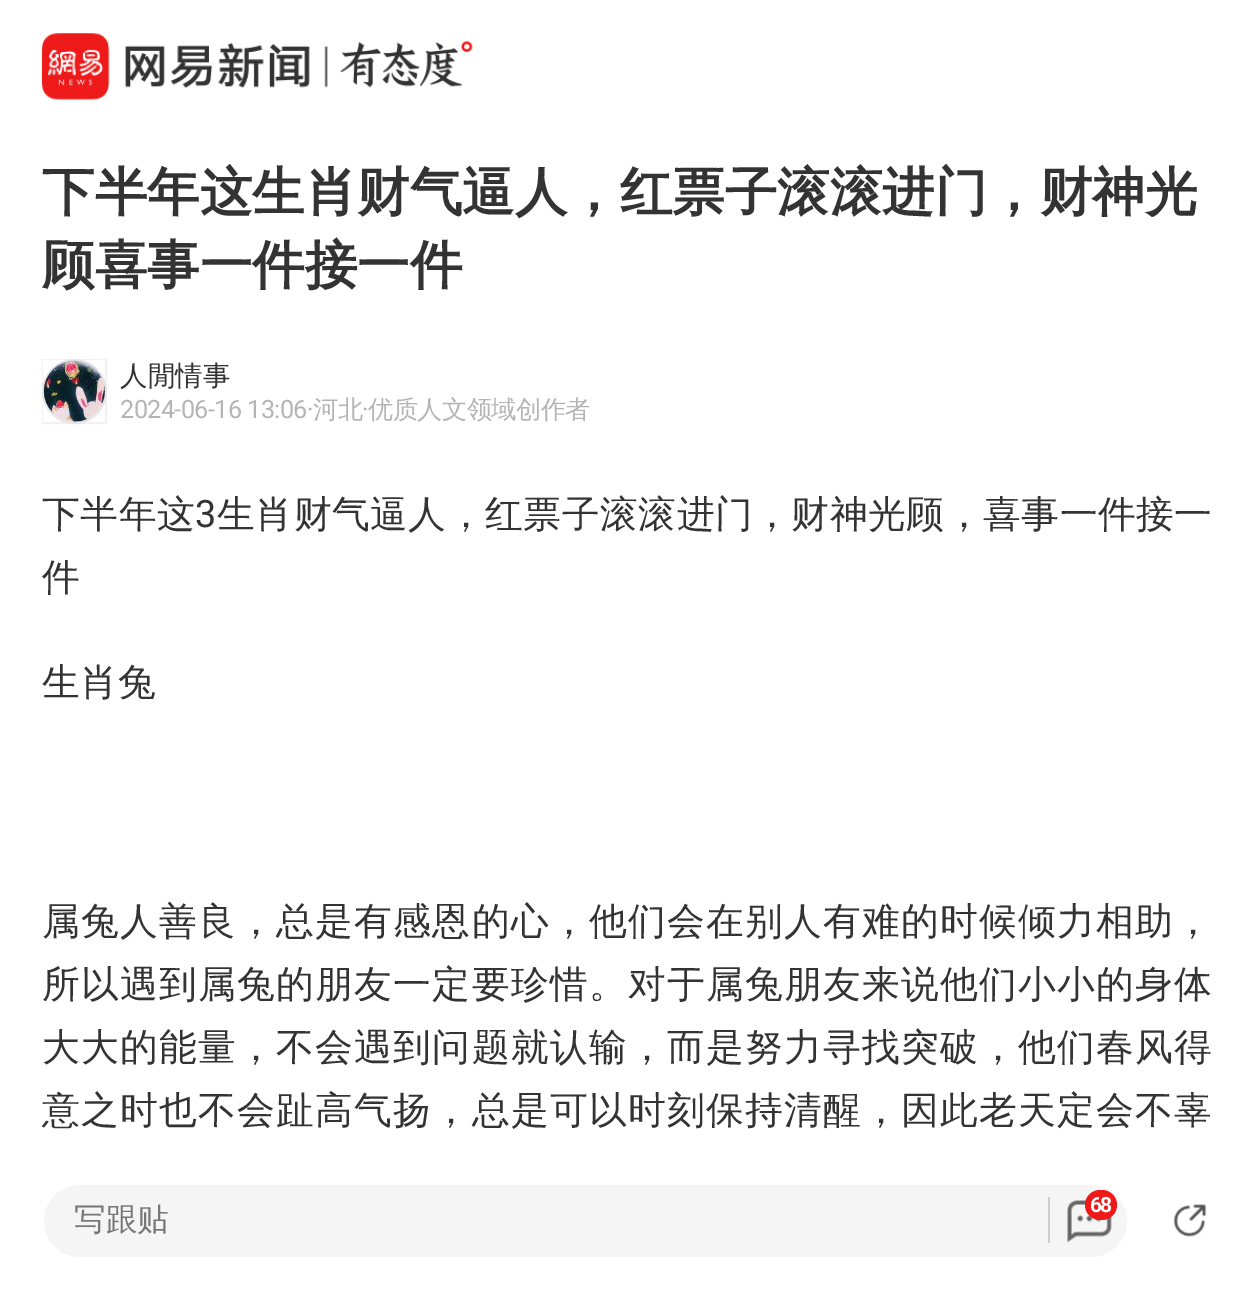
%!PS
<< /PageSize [1254 1291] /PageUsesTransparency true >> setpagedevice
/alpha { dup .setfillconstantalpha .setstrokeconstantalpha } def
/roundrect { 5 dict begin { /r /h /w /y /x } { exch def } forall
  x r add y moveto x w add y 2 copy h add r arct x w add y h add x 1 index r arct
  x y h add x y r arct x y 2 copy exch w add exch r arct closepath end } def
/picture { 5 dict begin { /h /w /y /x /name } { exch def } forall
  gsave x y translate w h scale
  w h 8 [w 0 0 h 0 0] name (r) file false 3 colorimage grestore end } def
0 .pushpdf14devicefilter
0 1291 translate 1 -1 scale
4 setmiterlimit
1 setgray
0 0 1254 1291 rectfill
(img1.rgb) 42 33 431 67 picture
/WenQuanYiZenHei-Bold [52.5 0 0 -52.5 0 0] selectfont
0.2 setgray
42 210 moveto (下半年这生肖财气逼人，红票子滚滚进门，财神光) show
42 283 moveto (顾喜事一件接一件) show
0.949 setgray
newpath 74.5 391.5 32.5 0 360 arc closepath fill
0.05 alpha
0 setgray
2 setlinewidth
43 360 63 63 rectstroke
1 alpha
(img2.rgb) 43 360 62 62 picture
/WenQuanYiZenHei-Medium [27.5 0 0 -27.5 0 0] selectfont
0.2 setgray
120 385 moveto (人閒情事) show
/Roboto-Regular [25.25 0 0 -25.25 0 0] selectfont
0.706 setgray
120 418 moveto -0.6 0 (2024-06-16 13:06·) ashow
/WenQuanYiZenHei-Medium [25.25 0 0 -25.25 0 0] selectfont
313 418 moveto -0.6 0 (河北) ashow
/Roboto-Regular [25.25 0 0 -25.25 0 0] selectfont
362 418 moveto -0.6 0 (·) ashow
/WenQuanYiZenHei-Medium [25.25 0 0 -25.25 0 0] selectfont
368 418 moveto -0.6 0 (优质人文领域创作者) ashow
/WenQuanYiZenHei-Medium [37.8 0 0 -37.8 0 0] selectfont
0.2 setgray
42 527 moveto 0.5 0 (下半年这) ashow
/Roboto-Regular [37.8 0 0 -37.8 0 0] selectfont
195 527 moveto 0.5 0 (3) ashow
/WenQuanYiZenHei-Medium [37.8 0 0 -37.8 0 0] selectfont
217 527 moveto 0.5 0 (生肖财气逼人，红票子滚滚进门，财神光顾，喜事一件接一) ashow
42 590 moveto (件) show
42 695 moveto (生肖兔) show
42 934 moveto 1.25 0 (属兔人善良，总是有感恩的心，他们会在别人有难的时候倾力相助，) ashow
42 997 moveto 1.25 0 (所以遇到属兔的朋友一定要珍惜。对于属兔朋友来说他们小小的身体) ashow
42 1060 moveto 1.25 0 (大大的能量，不会遇到问题就认输，而是努力寻找突破，他们春风得) ashow
42 1123 moveto 1.25 0 (意之时也不会趾高气扬，总是可以时刻保持清醒，因此老天定会不辜) ashow
0.961 setgray
44 1185 1083 72 36 roundrect fill
(img3.rgb) 1067 1200 45 43 picture
0.933 0.102 0.102 setrgbcolor
1085 1190 32 30 15 roundrect fill
/Roboto-Bold [21 0 0 -21 0 0] selectfont
1 setgray
1090 1212 moveto -2 0 (68) ashow
/WenQuanYiZenHei-Medium [31.5 0 0 -31.5 0 0] selectfont
0.467 setgray
74 1230 moveto (写跟贴) show
0.8 setgray
1048 1197 2 46 rectfill
(img4.rgb) 1173 1204 34 33 picture
.poppdf14devicefilter showpage
